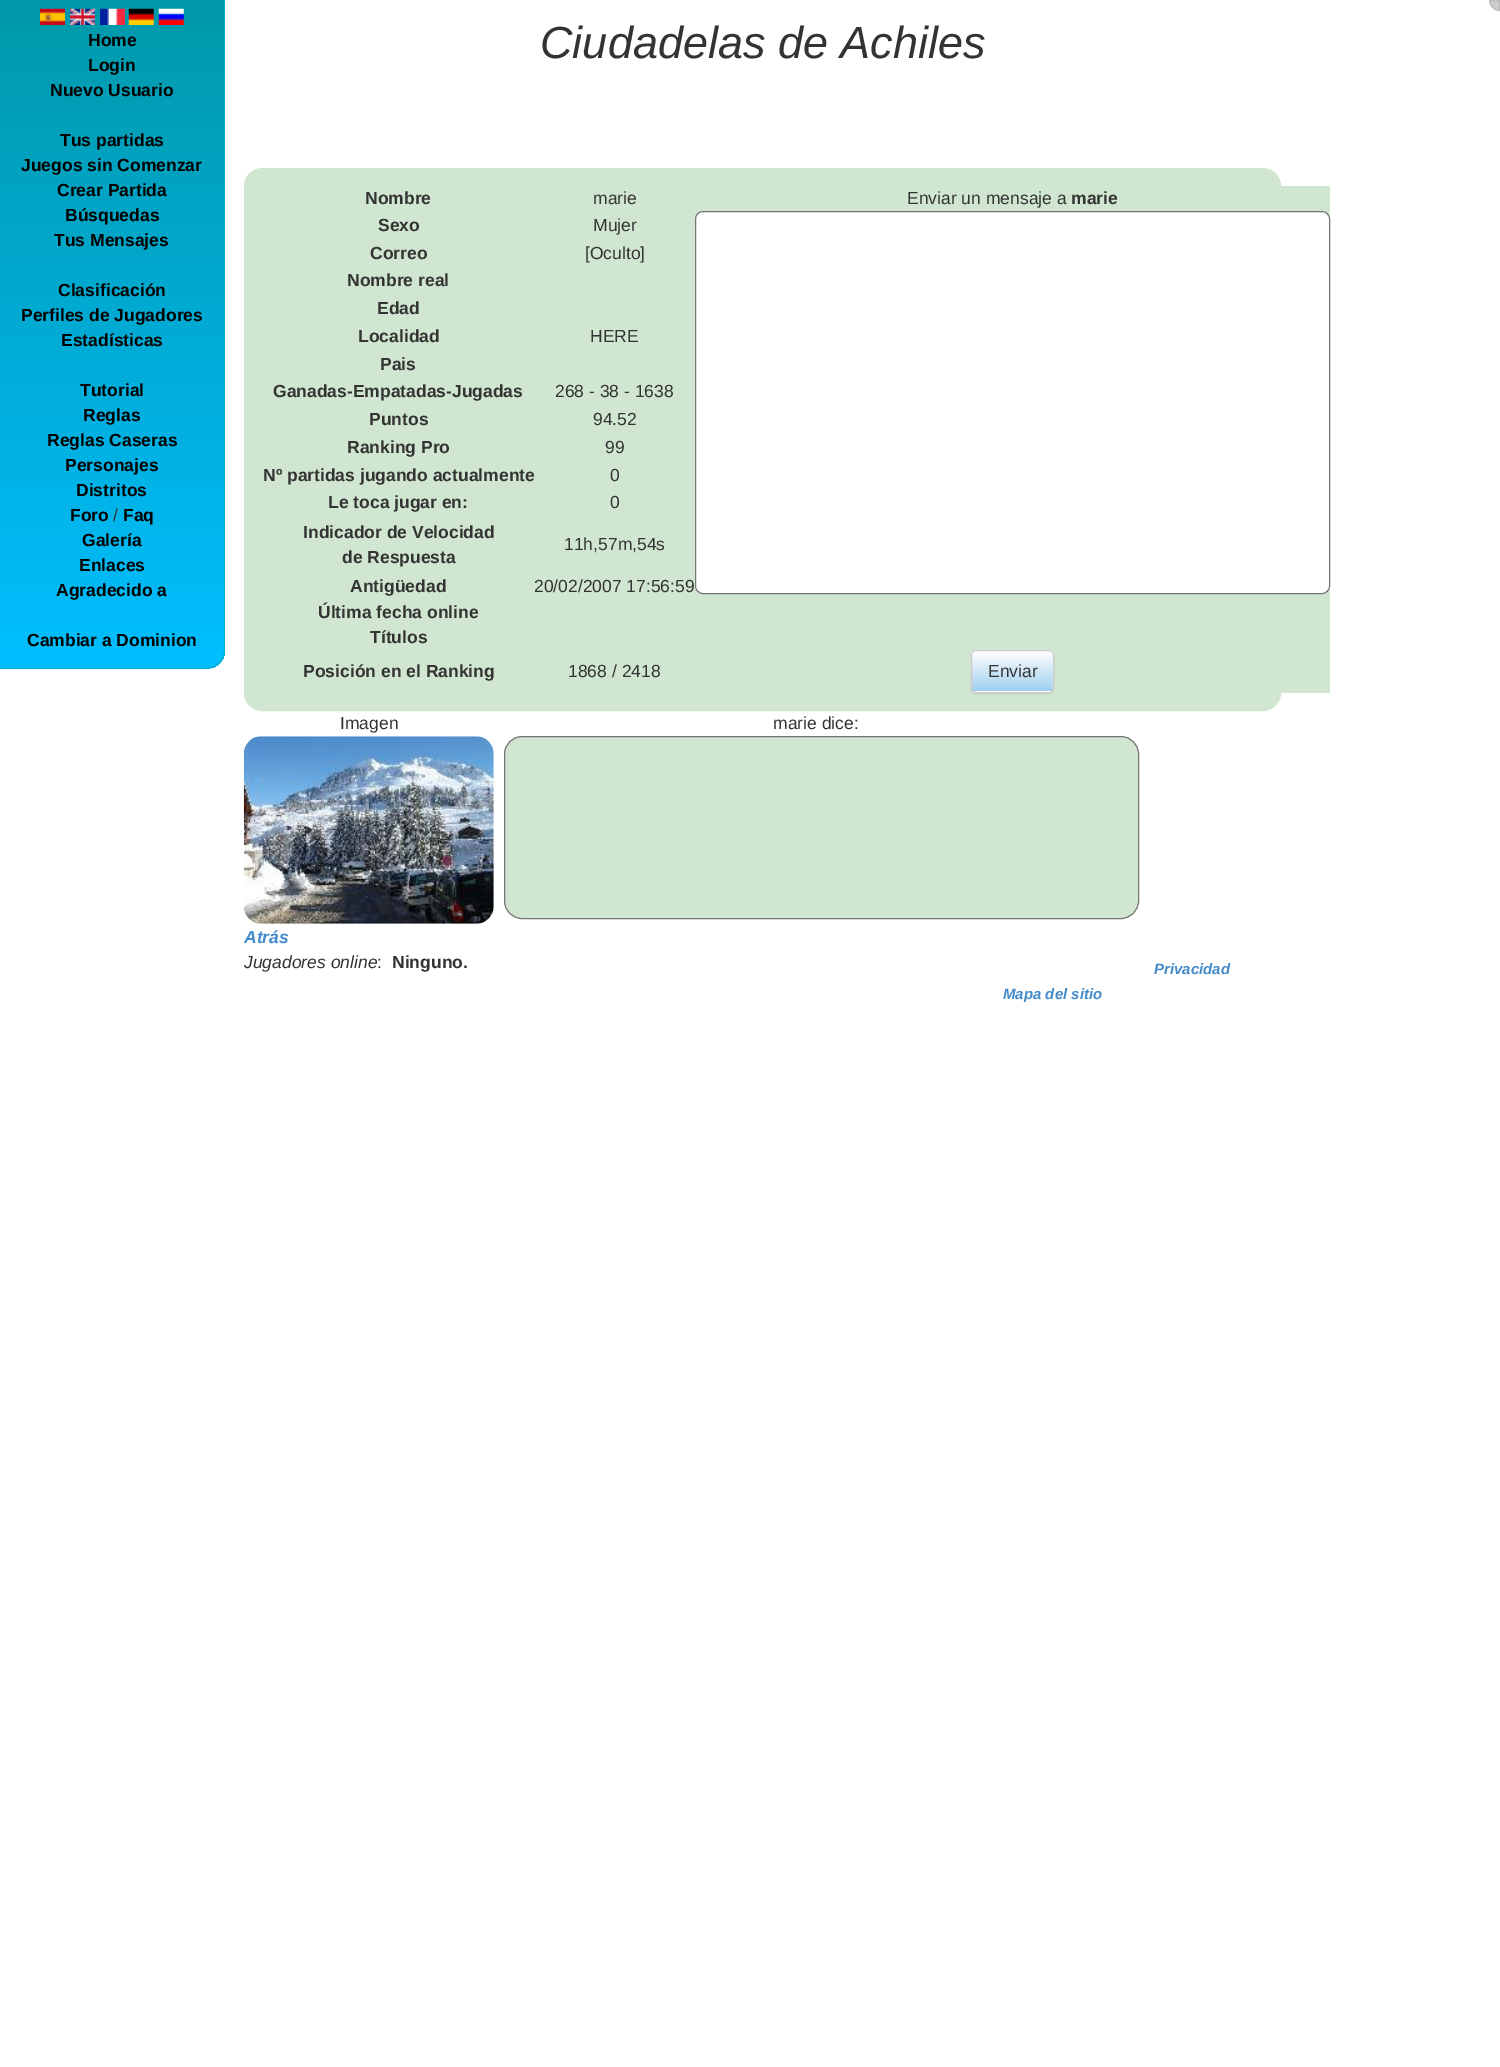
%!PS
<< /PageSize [1500 2067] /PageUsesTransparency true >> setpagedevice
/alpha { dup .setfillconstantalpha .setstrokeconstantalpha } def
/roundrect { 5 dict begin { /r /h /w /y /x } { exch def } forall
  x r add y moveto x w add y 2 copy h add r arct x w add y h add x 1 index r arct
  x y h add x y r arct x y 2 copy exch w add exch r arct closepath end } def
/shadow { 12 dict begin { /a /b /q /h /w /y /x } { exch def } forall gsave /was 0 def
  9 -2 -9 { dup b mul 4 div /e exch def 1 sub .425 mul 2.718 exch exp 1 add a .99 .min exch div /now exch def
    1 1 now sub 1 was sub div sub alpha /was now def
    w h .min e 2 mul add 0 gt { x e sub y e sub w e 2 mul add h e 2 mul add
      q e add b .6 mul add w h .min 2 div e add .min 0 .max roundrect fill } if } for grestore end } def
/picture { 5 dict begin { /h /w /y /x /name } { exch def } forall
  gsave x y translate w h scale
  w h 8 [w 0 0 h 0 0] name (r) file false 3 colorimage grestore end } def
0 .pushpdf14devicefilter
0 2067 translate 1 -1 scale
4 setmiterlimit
1 setgray
0 0 1500 2067 rectfill
0.8 setgray
newpath 1489.5 0.5 moveto 1499.5 0.5 lineto 1499.5 10.5 lineto 1500 10.5 lineto 1494 10.5 1489.5 6 1489.5 0 curveto closepath gsave fill grestore
0.733 setgray
stroke
gsave
newpath 0 0 moveto 225 0 lineto 225 650 lineto 225 660.5 216.5 669 206 669 curveto 0 669 lineto closepath clip newpath
gsave newpath 0 0 moveto 225 0 lineto 225 668 lineto 0 668 lineto closepath clip newpath
<< /ShadingType 2 /ColorSpace /DeviceRGB /Coords [0 0 0 668] /Extend [true true] /Function << /FunctionType 2 /Domain [0 1] /C0 [0 0.6 0.667] /C1 [0 0.745 1] /N 1 >> >> shfill grestore
grestore
0 0.667 0.8 setrgbcolor
newpath 0 0 moveto 225 0 lineto 225 650 lineto 225 660 217 669 206 669 curveto 0 669 lineto closepath 0 0 moveto 224 0 lineto 224 650 lineto 224 660 216 668 206 668 curveto 0 668 lineto closepath eofill
(img1.rgb) 40 8 25 17 picture
(img2.rgb) 70 8 25 17 picture
(img3.rgb) 100 8 25 17 picture
(img4.rgb) 128 8 26 17 picture
(img5.rgb) 158 8 26 17 picture
/LiberationSans-Bold [17.5 0 0 -17.5 0 0] selectfont
0 setgray
88 46 moveto (Home) show
88 71 moveto (Login) show
50 96 moveto (Nuevo Usuario) show
60 146 moveto (Tus partidas) show
21 171 moveto (Juegos sin Comenzar) show
57 196 moveto (Crear Partida) show
65 221 moveto (Búsquedas) show
54 246 moveto (Tus Mensajes) show
58 296 moveto (Clasificación) show
21 321 moveto (Perfiles de Jugadores) show
61 346 moveto (Estadísticas) show
80 396 moveto (Tutorial) show
83 421 moveto (Reglas) show
47 446 moveto (Reglas Caseras) show
65 471 moveto (Personajes) show
76 496 moveto (Distritos) show
70 521 moveto (Foro) show
/LiberationSans-Regular [17.5 0 0 -17.5 0 0] selectfont
0.2 setgray
113 521 moveto (/) show
/LiberationSans-Bold [17.5 0 0 -17.5 0 0] selectfont
0 setgray
123 521 moveto (Faq) show
82 546 moveto (Galería) show
79 571 moveto (Enlaces) show
56 596 moveto (Agradecido a) show
27 646 moveto (Cambiar a Dominion) show
/LiberationSans-Italic [45 0 0 -45 0 0] selectfont
0.2 setgray
540 58 moveto (Ciudadelas de Achiles) show
0.816 0.902 0.816 setrgbcolor
244.5 168.5 1036 542 17.5 roundrect gsave fill grestore
stroke
/LiberationSans-Bold [17.5 0 0 -17.5 0 0] selectfont
0.2 setgray
365 204 moveto (Nombre) show
/LiberationSans-Regular [17.5 0 0 -17.5 0 0] selectfont
593 204 moveto (marie) show
0.816 0.902 0.816 setrgbcolor
1281 186 49 507 rectfill
0.2 setgray
907 204 moveto (Enviar un mensaje a) show
/LiberationSans-Bold [17.5 0 0 -17.5 0 0] selectfont
1071 204 moveto (marie) show
378 231 moveto (Sexo) show
/LiberationSans-Regular [17.5 0 0 -17.5 0 0] selectfont
593 231 moveto (Mujer) show
1 setgray
695.5 211.5 634 382 7.5 roundrect gsave fill grestore
0.463 setgray
stroke
/LiberationSans-Bold [17.5 0 0 -17.5 0 0] selectfont
0.2 setgray
370 259 moveto (Correo) show
/LiberationSans-Regular [17.5 0 0 -17.5 0 0] selectfont
585 259 moveto ([Oculto]) show
/LiberationSans-Bold [17.5 0 0 -17.5 0 0] selectfont
347 286 moveto (Nombre real) show
377 314 moveto (Edad) show
358 342 moveto (Localidad) show
/LiberationSans-Regular [17.5 0 0 -17.5 0 0] selectfont
590 342 moveto (HERE) show
/LiberationSans-Bold [17.5 0 0 -17.5 0 0] selectfont
380 370 moveto (Pais) show
273 397 moveto (Ganadas-Empatadas-Jugadas) show
/LiberationSans-Regular [17.5 0 0 -17.5 0 0] selectfont
555 397 moveto (268 - 38 - 1638) show
/LiberationSans-Bold [17.5 0 0 -17.5 0 0] selectfont
369 425 moveto (Puntos) show
/LiberationSans-Regular [17.5 0 0 -17.5 0 0] selectfont
593 425 moveto (94.52) show
/LiberationSans-Bold [17.5 0 0 -17.5 0 0] selectfont
347 453 moveto (Ranking Pro) show
/LiberationSans-Regular [17.5 0 0 -17.5 0 0] selectfont
605 453 moveto (99) show
/LiberationSans-Bold [17.5 0 0 -17.5 0 0] selectfont
263 481 moveto (Nº partidas jugando actualmente) show
/LiberationSans-Regular [17.5 0 0 -17.5 0 0] selectfont
610 481 moveto (0) show
/LiberationSans-Bold [17.5 0 0 -17.5 0 0] selectfont
328 508 moveto (Le toca jugar en:) show
/LiberationSans-Regular [17.5 0 0 -17.5 0 0] selectfont
610 508 moveto (0) show
/LiberationSans-Bold [17.5 0 0 -17.5 0 0] selectfont
303 538 moveto (Indicador de Velocidad) show
342 563 moveto (de Respuesta) show
/LiberationSans-Regular [17.5 0 0 -17.5 0 0] selectfont
564 550 moveto (11h,57m,54s) show
/LiberationSans-Bold [17.5 0 0 -17.5 0 0] selectfont
350 592 moveto (Antigüedad) show
/LiberationSans-Regular [17.5 0 0 -17.5 0 0] selectfont
534 592 moveto (20/02/2007 17:56:59) show
/LiberationSans-Bold [17.5 0 0 -17.5 0 0] selectfont
318 618 moveto (Última fecha online) show
370 643 moveto (Títulos) show
303 677 moveto (Posición en el Ranking) show
/LiberationSans-Regular [17.5 0 0 -17.5 0 0] selectfont
568 677 moveto (1868 / 2418) show
0 setgray
971 651 83 43 5 0.5 0.07 shadow
1 setgray
971 650 83 43 5 roundrect fill
gsave
971 650 83 43 5 roundrect clip newpath
gsave newpath 971 651 moveto 1054 651 lineto 1054 691 lineto 971 691 lineto closepath clip newpath
<< /ShadingType 2 /ColorSpace /DeviceRGB /Coords [1013 651 1013 691] /Extend [true true] /Function << /FunctionType 2 /Domain [0 1] /C0 [1 1 1] /C1 [0.627 0.816 0.941] /N 1 >> >> shfill grestore
grestore
0.15 alpha
newpath 976 652 moveto 1037 652 lineto 1055 652 1052 650 1052 667 curveto 1052 690 lineto 1053 689 1053 688 1053 687 curveto 1053 655 lineto 1053 653 1051 651 1049 651 curveto 977 651 lineto 976 651 974 652 974 653 curveto closepath fill
1 alpha
0.8 setgray
971.5 650.5 82 42 4.5 roundrect stroke
0.2 setgray
988 677 moveto (Enviar) show
340 729 moveto (Imagen) show
773 729 moveto (marie dice:) show
(img6.rgb) 243 736 251 188 picture
0.816 0.902 0.816 setrgbcolor
504.5 736.5 634 182 17.5 roundrect gsave fill grestore
0.463 setgray
stroke
/LiberationSans-BoldItalic [17.5 0 0 -17.5 0 0] selectfont
0.259 0.545 0.792 setrgbcolor
244 943 moveto (Atrás) show
/LiberationSans-Italic [17.5 0 0 -17.5 0 0] selectfont
0.2 setgray
244 968 moveto (Jugadores online) show
/LiberationSans-Regular [17.5 0 0 -17.5 0 0] selectfont
377 968 moveto (:) show
/LiberationSans-Bold [17.5 0 0 -17.5 0 0] selectfont
392 968 moveto (Ninguno.) show
/LiberationSans-BoldItalic [15 0 0 -15 0 0] selectfont
0.259 0.545 0.792 setrgbcolor
1154 974 moveto (Privacidad) show
1003 999 moveto (Mapa del sitio) show
.poppdf14devicefilter showpage
